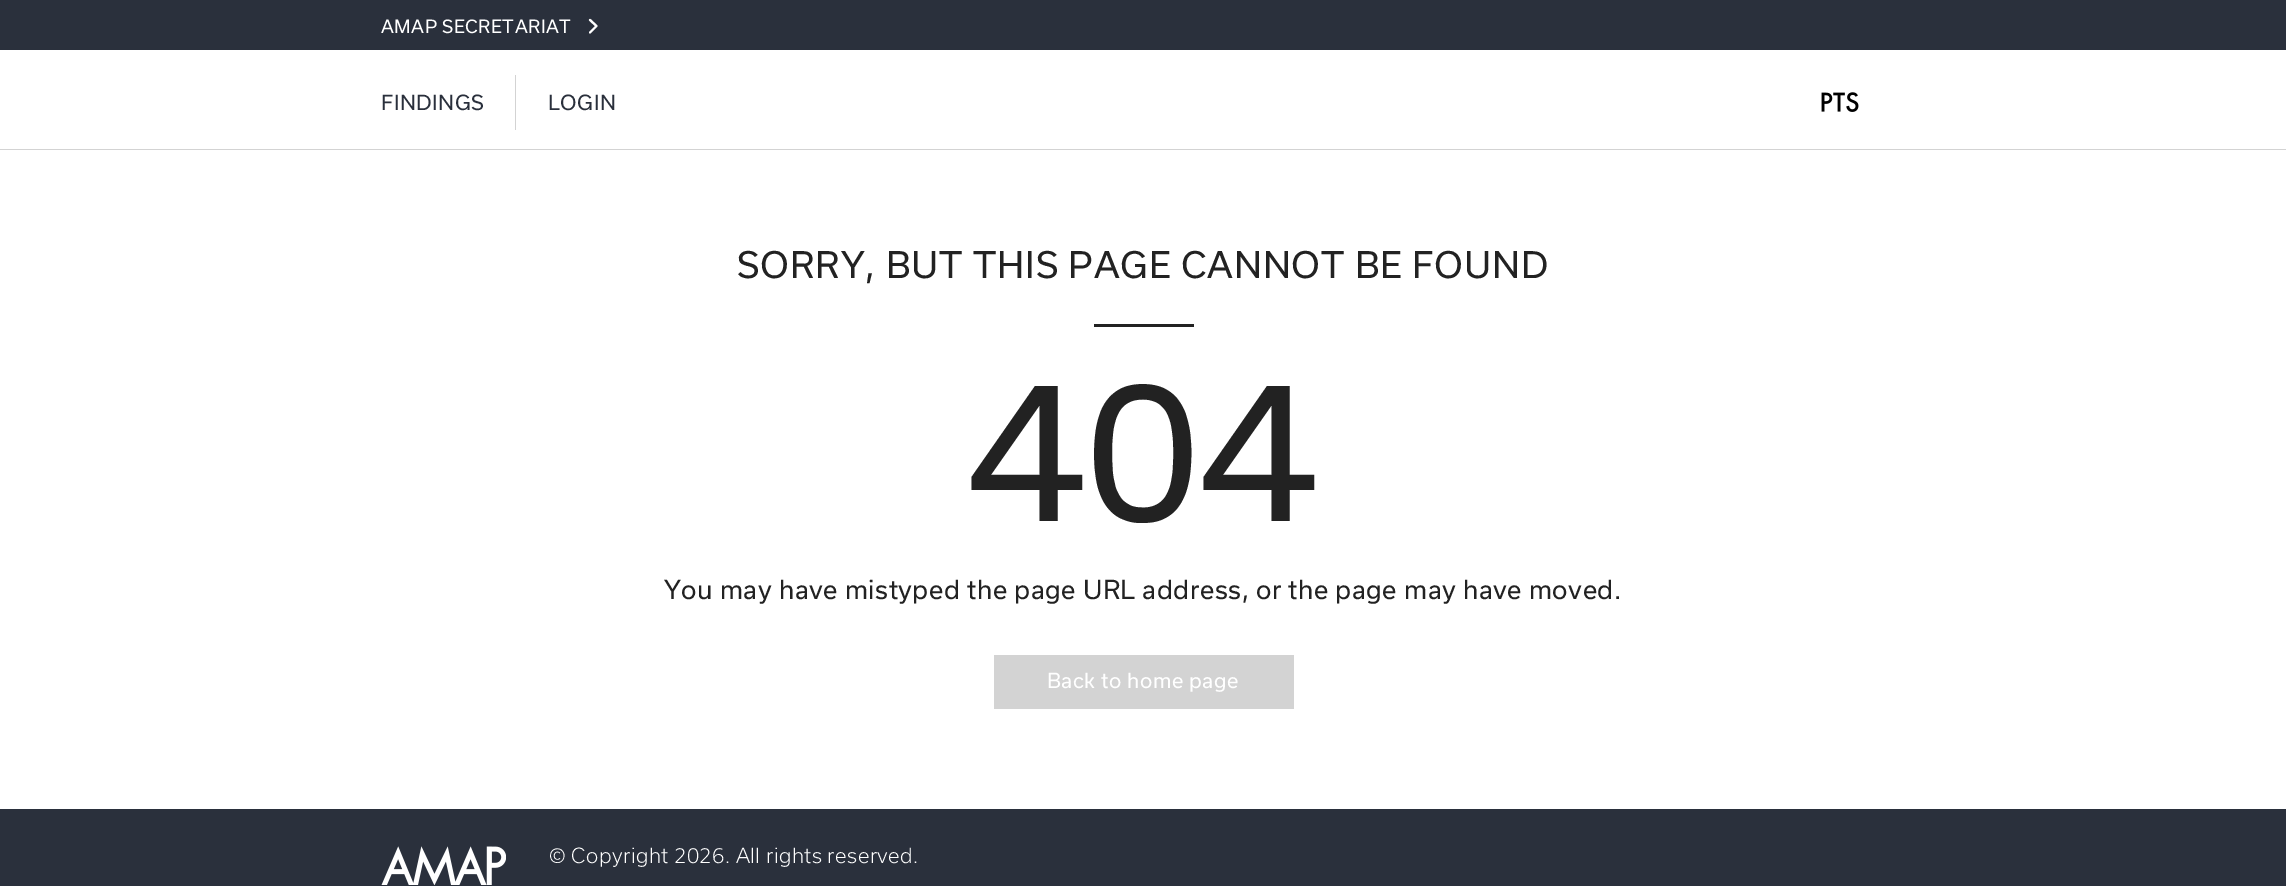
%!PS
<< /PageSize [2286 886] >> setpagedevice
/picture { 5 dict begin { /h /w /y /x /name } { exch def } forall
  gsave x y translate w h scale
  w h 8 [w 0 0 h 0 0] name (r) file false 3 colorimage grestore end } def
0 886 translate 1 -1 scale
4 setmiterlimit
0.165 0.188 0.235 setrgbcolor
0 0 2286 886 rectfill
/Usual-Regular [17.5 0 0 -17.5 0 0] selectfont
1 setgray
381 33 moveto 0.5 0 (AMAP SECRETARIAT) ashow
2.1 setlinewidth
1 setlinecap
1 setlinejoin
newpath 590 32.5 moveto 596.5 26 lineto 590 20 lineto stroke
0 50 2286 99 rectfill
0.827 setgray
0 149 2286 1 rectfill
515 75 1 55 rectfill
/Usual-Regular [20 0 0 -20 0 0] selectfont
0.165 0.188 0.235 setrgbcolor
381 110 moveto 0.5 0 (FINDINGS) ashow
548 110 moveto 0.5 0 (LOGIN) ashow
(img1.rgb) 1821 92 38 20 picture
1 setgray
0 150 2286 659 rectfill
/Usual-Regular [35 0 0 -35 0 0] selectfont
0.133 setgray
737 278 moveto 0.9 0 (SORRY, BUT THIS PAGE CANNOT BE FOUND) ashow
1094 324 100 3 rectfill
/Usual-Regular [184 0 0 -184 0 0] selectfont
969 521 moveto 0.5 0 (404) ashow
/Usual-Regular [25 0 0 -25 0 0] selectfont
664 599 moveto 0.5 0 (You may have mistyped the page URL address, or the page may have moved.) ashow
0.827 setgray
994 655 300 54 rectfill
/Usual-Regular [20 0 0 -20 0 0] selectfont
1 setgray
1047 688 moveto 0.5 0 (Back to home page) ashow
(img2.rgb) 381 846 125 39 picture
/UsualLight-Light [20 0 0 -20 0 0] selectfont
549 863 moveto 0.5 0 (© Copyright 2026. All rights reserved.) ashow
showpage
